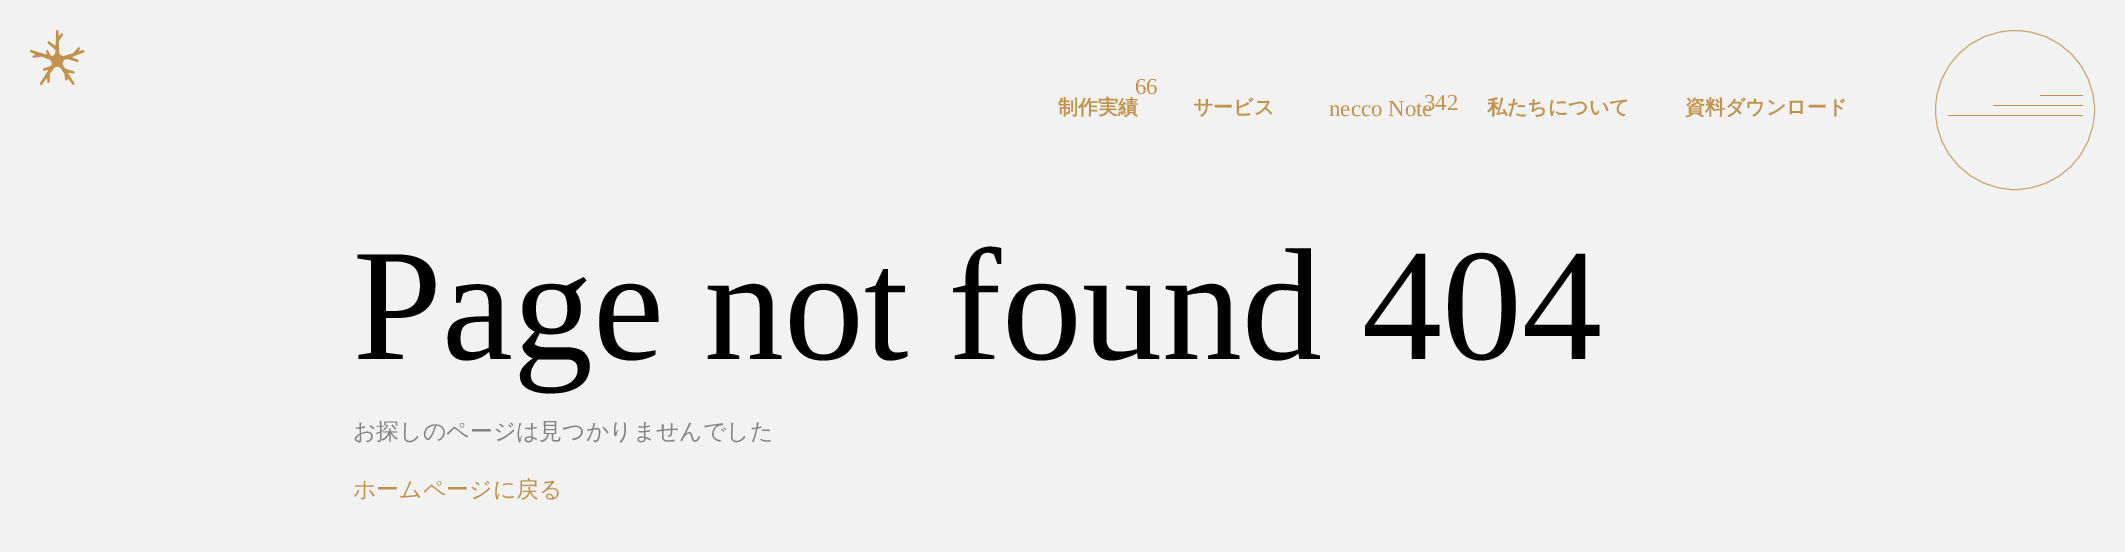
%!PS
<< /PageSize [2125 552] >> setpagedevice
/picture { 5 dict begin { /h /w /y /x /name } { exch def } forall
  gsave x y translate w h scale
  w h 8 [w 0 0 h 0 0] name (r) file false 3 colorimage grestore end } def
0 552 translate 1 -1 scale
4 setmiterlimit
0.949 setgray
0 0 2125 552 rectfill
(img1.rgb) 30 30 55 55 picture
/LiberationSerif-Regular [22.9 0 0 -22.9 0 0] selectfont
0.761 0.573 0.302 setrgbcolor
1135 94 moveto (66) show
/WenQuanYiZenHei-Bold [20 0 0 -20 0 0] selectfont
1058 114 moveto (制作実績) show
1193 114 moveto (サービス) show
/LiberationSerif-Regular [22.9 0 0 -22.9 0 0] selectfont
1329 116 moveto (necco Note) show
1424 110 moveto (342) show
/WenQuanYiZenHei-Bold [20 0 0 -20 0 0] selectfont
1487 114 moveto (私たちについて) show
1685 114 moveto (資料ダウンロード) show
2040 95 43 1 rectfill
1993 105 90 1 rectfill
1948 115 135 1 rectfill
0.8 0.651 0.439 setrgbcolor
newpath 2015 110 79.5 0 360 arc closepath stroke
/LiberationSerif-Regular [160 0 0 -160 0 0] selectfont
0 setgray
353 359 moveto (Page not found 404) show
/WenQuanYiZenHei-Medium [22.9 0 0 -22.9 0 0] selectfont
0.514 setgray
353 439 moveto (お探しのページは見つかりませんでした) show
0.761 0.573 0.302 setrgbcolor
353 497 moveto (ホームページに戻る) show
showpage
